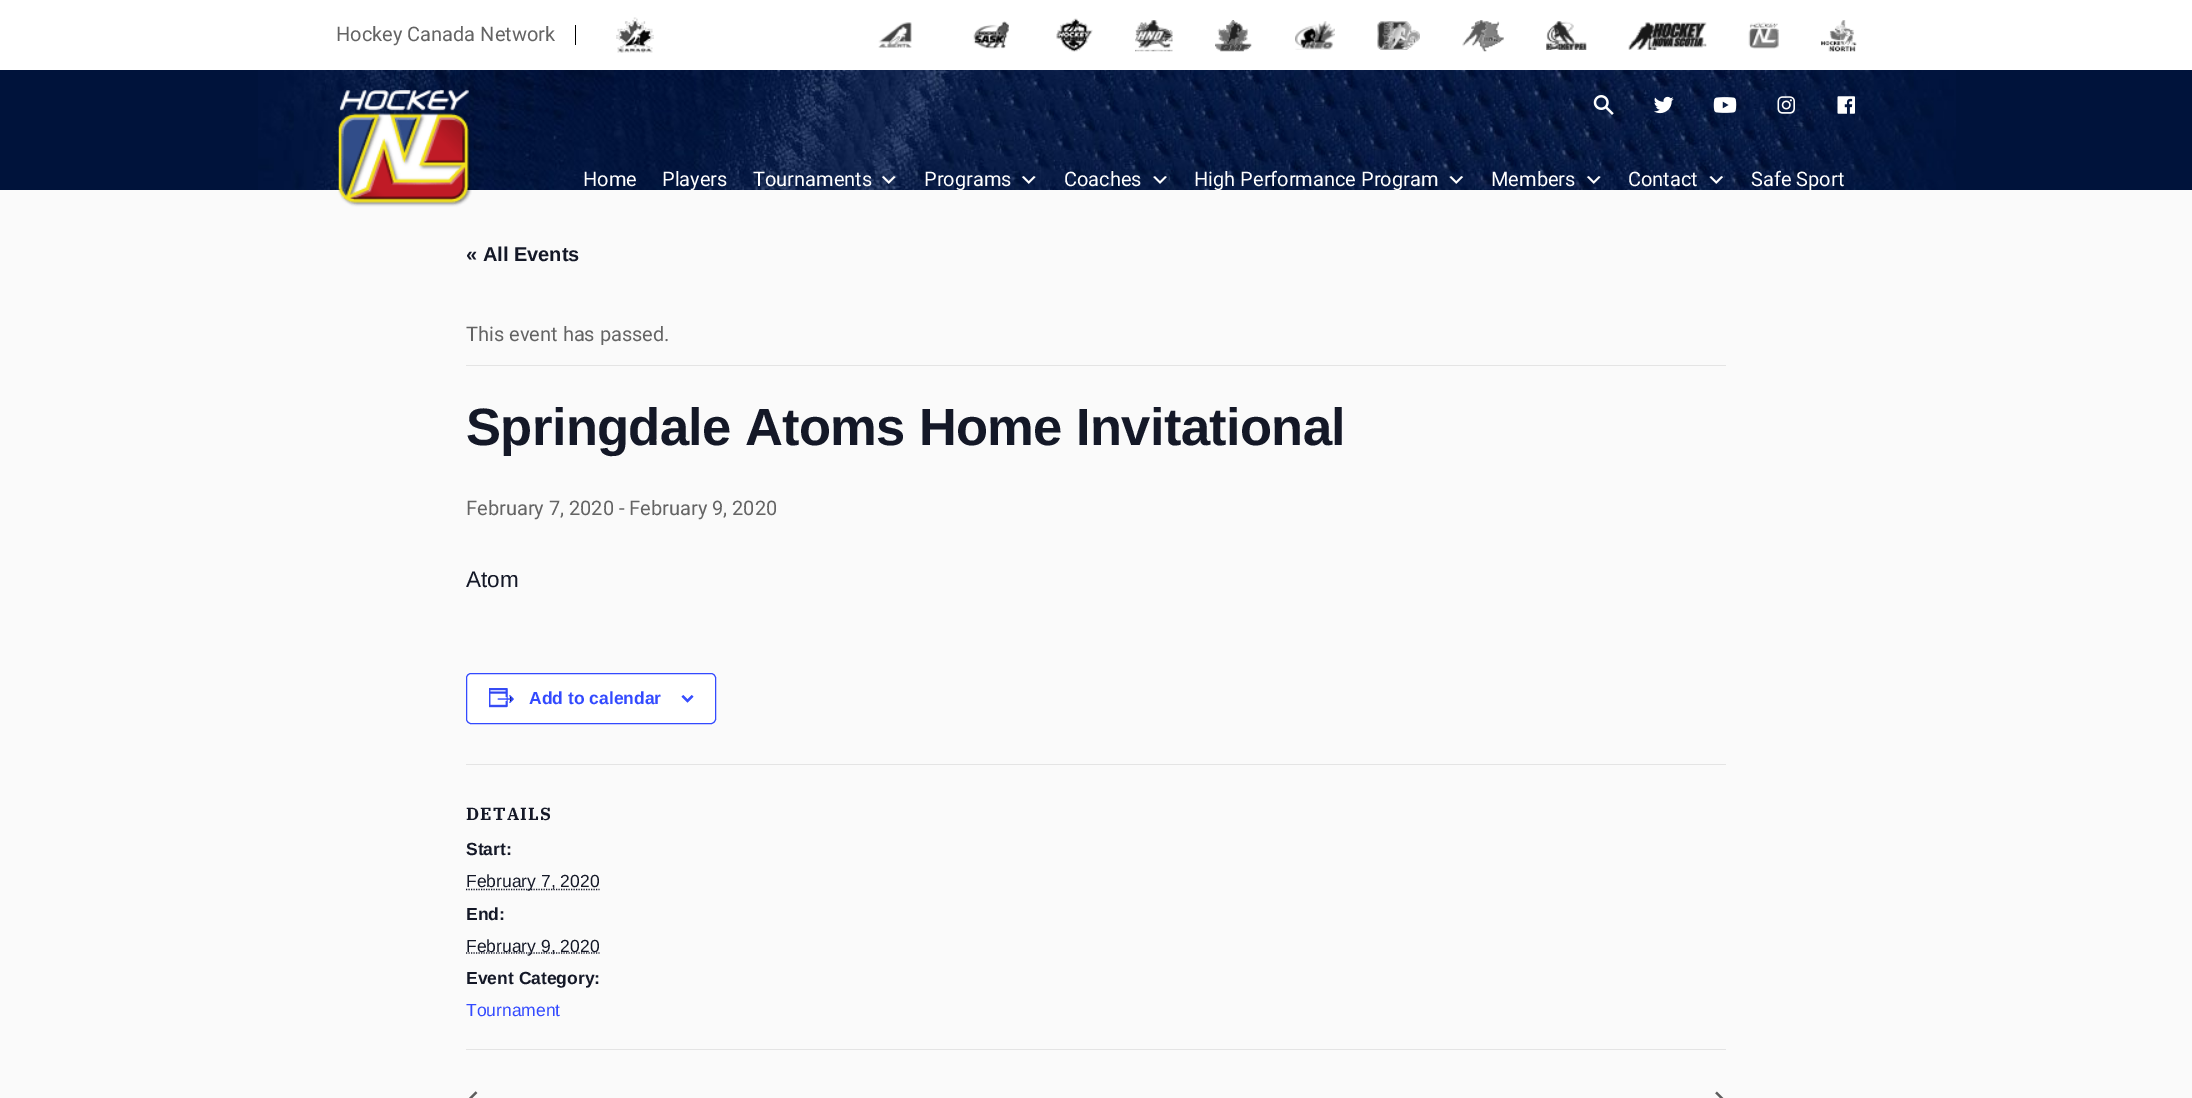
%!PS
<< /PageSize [2192 1098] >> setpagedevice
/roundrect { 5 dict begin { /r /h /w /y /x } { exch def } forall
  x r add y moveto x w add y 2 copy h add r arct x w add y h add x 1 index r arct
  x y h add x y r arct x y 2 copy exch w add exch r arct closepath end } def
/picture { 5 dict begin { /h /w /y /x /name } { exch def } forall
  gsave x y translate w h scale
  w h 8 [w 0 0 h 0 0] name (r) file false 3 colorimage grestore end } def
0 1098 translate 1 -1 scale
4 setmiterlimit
0.98 setgray
0 0 2192 1098 rectfill
1 setgray
0 0 2192 70 rectfill
0 setgray
575 25 1 20 rectfill
/Roboto-Regular [20 0 0 -20 0 0] selectfont
0.392 setgray
336 41 moveto (Hockey Canada Network) show
(img1.rgb) 616 17 38 36 picture
(img2.rgb) 878 22 34 26 picture
(img3.rgb) 973 21 36 28 picture
(img4.rgb) 1056 18 37 34 picture
(img5.rgb) 1135 20 38 32 picture
(img6.rgb) 1215 20 37 32 picture
(img7.rgb) 1295 21 40 29 picture
(img8.rgb) 1377 21 43 29 picture
(img9.rgb) 1462 20 42 32 picture
(img10.rgb) 1546 21 41 29 picture
(img11.rgb) 1628 22 79 28 picture
(img12.rgb) 1748 22 31 27 picture
(img13.rgb) 1821 20 36 32 picture
0 0.075 0.231 setrgbcolor
0 70 2192 120 rectfill
(img14.rgb) 258 70 1698 120 picture
(img15.rgb) 338 90 134 117 picture
(img16.rgb) 1593 95 21 20 picture
(img17.rgb) 1654 96 20 18 picture
(img18.rgb) 1713 97 24 16 picture
(img19.rgb) 1777 96 18 18 picture
(img20.rgb) 1837 96 18 18 picture
1 setgray
583 186 moveto (Home) show
662 186 moveto (Players) show
753 186 moveto (Tournaments) show
(img21.rgb) 881 176 15 8 picture
924 186 moveto (Programs) show
(img22.rgb) 1021 176 15 8 picture
1064 186 moveto (Coaches) show
(img23.rgb) 1153 176 14 8 picture
1194 186 moveto (High Performance Program) show
(img24.rgb) 1449 176 15 8 picture
1491 186 moveto (Members) show
(img25.rgb) 1586 176 15 8 picture
1628 186 moveto (Contact) show
(img26.rgb) 1709 176 15 8 picture
1751 186 moveto (Safe Sport) show
/LiberationSans-Bold [20 0 0 -20 0 0] selectfont
0.078 0.094 0.153 setrgbcolor
466 261 moveto (« All Events) show
0.894 setgray
466 365 1260 1 rectfill
/Roboto-Regular [20 0 0 -20 0 0] selectfont
0.392 setgray
466 341 moveto (This event has passed.) show
/LiberationSans-Bold [52.5 0 0 -52.5 0 0] selectfont
0.078 0.094 0.153 setrgbcolor
466 445 moveto -0.65 0 (Springdale Atoms Home Invitational) ashow
/Roboto-Regular [20 0 0 -20 0 0] selectfont
0.392 setgray
466 515 moveto (February 7, 2020 - February 9, 2020) show
/LiberationSans-Regular [22.5 0 0 -22.5 0 0] selectfont
0.078 0.094 0.153 setrgbcolor
466 587 moveto (Atom) show
1 setgray
466.5 673.5 249 50 4.5 roundrect gsave fill grestore
0.2 0.29 1 setrgbcolor
stroke
(img27.rgb) 489 688 25 20 picture
/LiberationSans-Bold [17.5 0 0 -17.5 0 0] selectfont
529 704 moveto (Add to calendar) show
(img28.rgb) 681 695 13 8 picture
0.894 setgray
466 764 1260 1 rectfill
/IBMPlexSerif-Bold [17.5 0 0 -17.5 0 0] selectfont
0.078 0.094 0.153 setrgbcolor
466 820 moveto 1.25 0 (DETAILS) ashow
/LiberationSans-Bold [17.5 0 0 -17.5 0 0] selectfont
466 855 moveto (Start:) show
1.2 setlinewidth
[1.25 1.25] 0 setdash
newpath 466 889.5 moveto 599.5 889.5 lineto stroke
/LiberationSans-Regular [17.5 0 0 -17.5 0 0] selectfont
466 887 moveto (February 7, 2020) show
/LiberationSans-Bold [17.5 0 0 -17.5 0 0] selectfont
466 920 moveto (End:) show
newpath 466 953 moveto 599.5 953 lineto stroke
/LiberationSans-Regular [17.5 0 0 -17.5 0 0] selectfont
466 952 moveto (February 9, 2020) show
/LiberationSans-Bold [17.5 0 0 -17.5 0 0] selectfont
466 984 moveto (Event Category:) show
/LiberationSans-Regular [17.5 0 0 -17.5 0 0] selectfont
0.2 0.29 1 setrgbcolor
466 1016 moveto (Tournament) show
0.894 setgray
466 1049 1260 1 rectfill
(img29.rgb) 469 1091 9 7 picture
(img30.rgb) 1715 1091 9 7 picture
showpage
